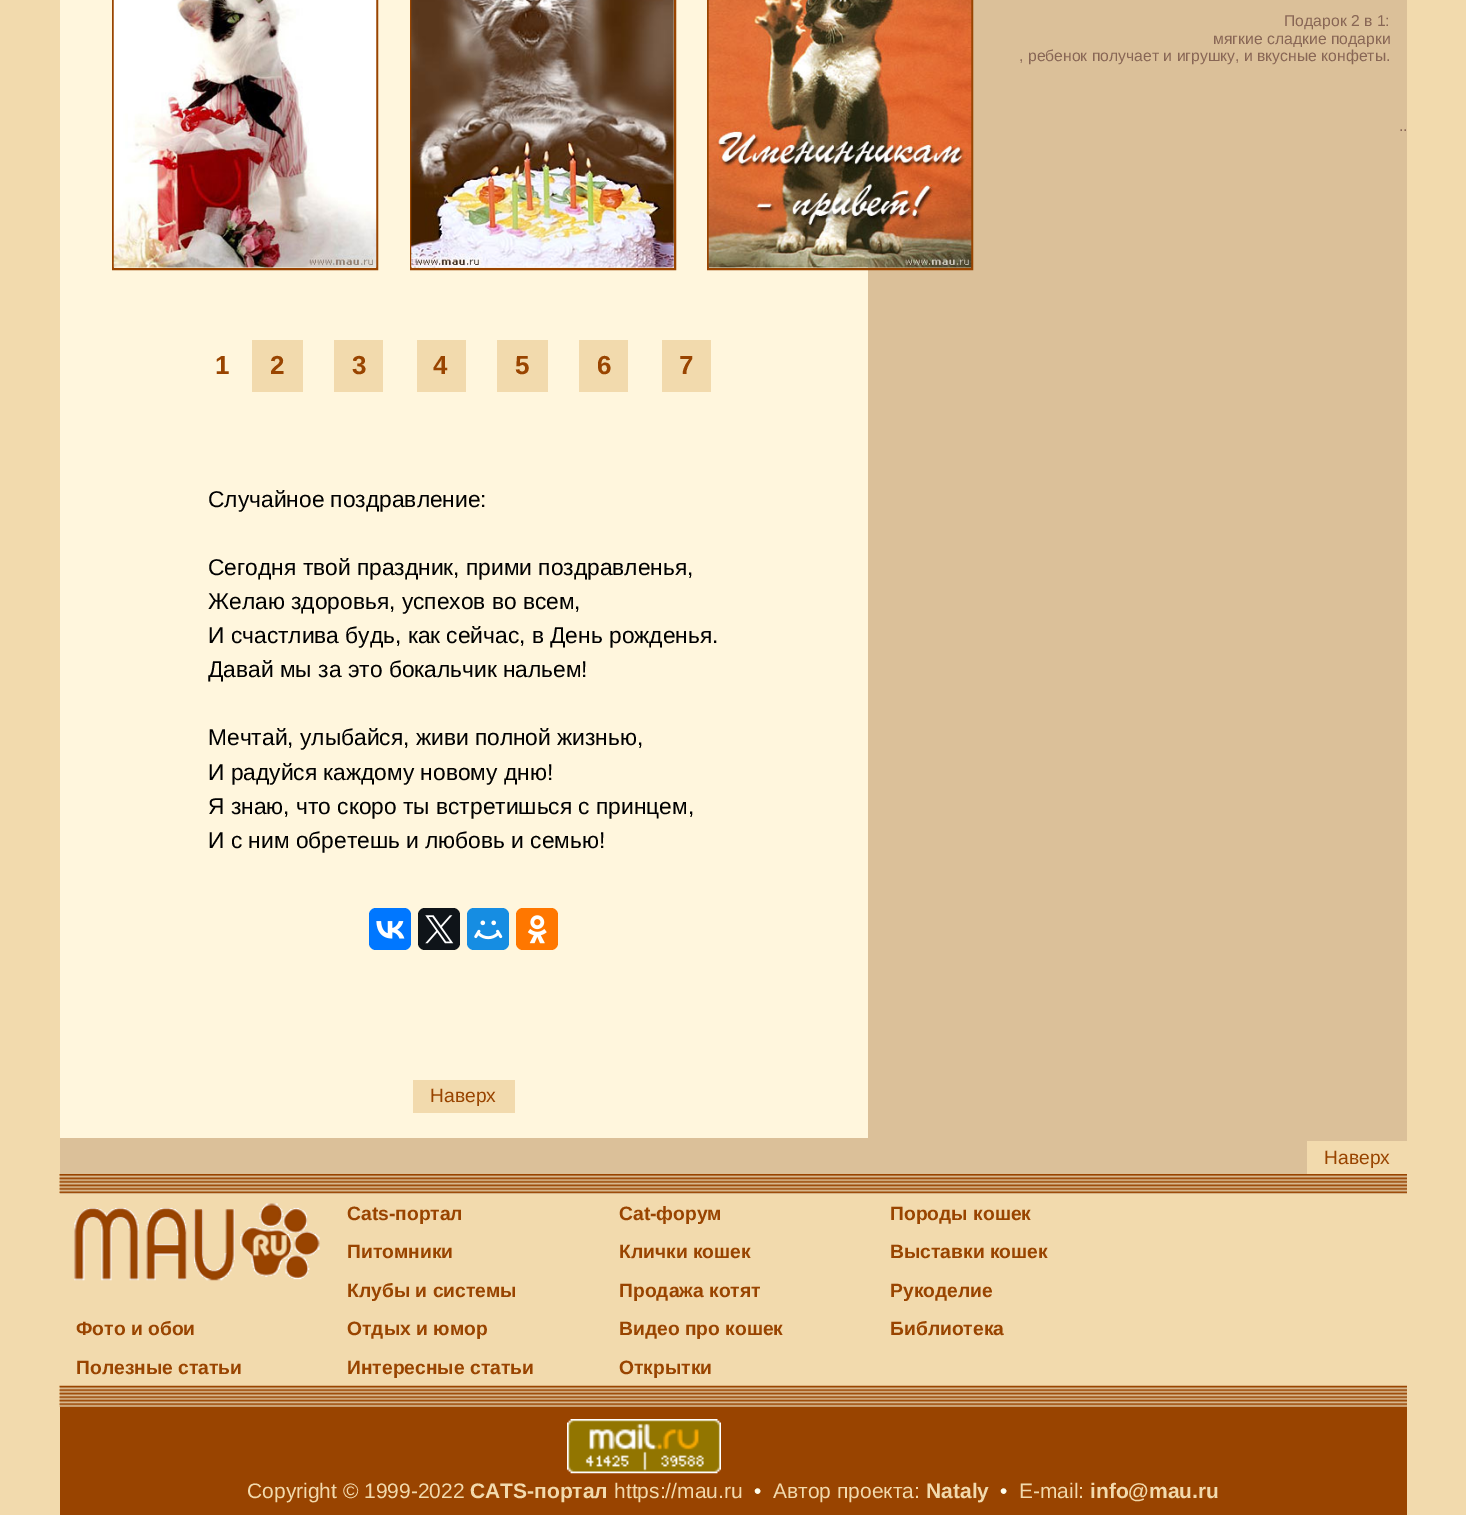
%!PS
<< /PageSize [1466 1515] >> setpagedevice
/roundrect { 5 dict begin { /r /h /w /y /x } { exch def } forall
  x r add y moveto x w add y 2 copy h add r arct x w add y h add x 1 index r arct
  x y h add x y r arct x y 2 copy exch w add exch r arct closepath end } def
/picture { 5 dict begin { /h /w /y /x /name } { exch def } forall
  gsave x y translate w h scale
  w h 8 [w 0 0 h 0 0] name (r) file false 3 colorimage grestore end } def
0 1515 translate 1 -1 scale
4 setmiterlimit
0.949 0.855 0.678 setrgbcolor
0 0 1466 1515 rectfill
0.859 0.753 0.6 setrgbcolor
60 0 1347 1407 rectfill
/LiberationSans-Regular [15.75 0 0 -15.75 0 0] selectfont
0.533 0.4 0.333 setrgbcolor
1284 26 moveto (Подарок 2 в 1:) show
gsave
886 30 504 17 rectclip
1213 44 moveto (мягкие сладкие подарки) show
grestore
1019 61 moveto (, ребенок получает и игрушку, и вкусные конфеты.) show
1399 131 moveto (..) show
1 0.965 0.867 setrgbcolor
60 0 808 1138 rectfill
0.6 0.267 0 setrgbcolor
2 setlinewidth
113 -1 264 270 rectstroke
(img1.rgb) 113 0 264 268 picture
411 -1 264 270 rectstroke
(img2.rgb) 411 0 263 268 picture
708 -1 264 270 rectstroke
(img3.rgb) 708 0 264 268 picture
/LiberationSans-Bold [26 0 0 -26 0 0] selectfont
215 374 moveto (1) show
0.949 0.855 0.678 setrgbcolor
252 340 51 52 rectfill
0.6 0.267 0 setrgbcolor
270 374 moveto (2) show
0.949 0.855 0.678 setrgbcolor
334 340 49 52 rectfill
0.6 0.267 0 setrgbcolor
352 374 moveto (3) show
0.949 0.855 0.678 setrgbcolor
417 340 49 52 rectfill
0.6 0.267 0 setrgbcolor
433 374 moveto (4) show
0.949 0.855 0.678 setrgbcolor
497 340 51 52 rectfill
0.6 0.267 0 setrgbcolor
515 374 moveto (5) show
0.949 0.855 0.678 setrgbcolor
579 340 49 52 rectfill
0.6 0.267 0 setrgbcolor
597 374 moveto (6) show
0.949 0.855 0.678 setrgbcolor
662 340 49 52 rectfill
0.6 0.267 0 setrgbcolor
679 374 moveto (7) show
/LiberationSans-Regular [22.75 0 0 -22.75 0 0] selectfont
0 setgray
208 507 moveto (Случайное поздравление:) show
208 575 moveto (Сегодня твой праздник, прими поздравленья,) show
208 609 moveto (Желаю здоровья, успехов во всем,) show
208 643 moveto (И счастлива будь, как сейчас, в День рожденья.) show
208 677 moveto (Давай мы за это бокальчик нальем!) show
208 745 moveto (Мечтай, улыбайся, живи полной жизнью,) show
208 780 moveto (И радуйся каждому новому дню!) show
208 814 moveto (Я знаю, что скоро ты встретишься с принцем,) show
208 848 moveto (И с ним обретешь и любовь и семью!) show
0 0.467 1 setrgbcolor
369 908 42 42 7 roundrect fill
(img4.rgb) 376 921 29 18 picture
0.059 0.078 0.098 setrgbcolor
418 908 42 42 7 roundrect fill
(img5.rgb) 425 915 29 29 picture
0.086 0.553 0.886 setrgbcolor
467 908 42 42 7 roundrect fill
(img6.rgb) 474 920 29 20 picture
1 0.467 0 setrgbcolor
516 908 42 42 7 roundrect fill
(img7.rgb) 527 915 20 29 picture
0.949 0.855 0.678 setrgbcolor
413 1080 102 33 rectfill
/LiberationSans-Regular [19.25 0 0 -19.25 0 0] selectfont
0.6 0.267 0 setrgbcolor
430 1102 moveto (Наверх) show
0.949 0.855 0.678 setrgbcolor
1307 1141 100 33 rectfill
0.6 0.267 0 setrgbcolor
1324 1164 moveto (Наверх) show
(img8.rgb) 59 1174 1348 20 picture
0.949 0.855 0.678 setrgbcolor
60 1194 1347 192 rectfill
(img9.rgb) 74 1203 246 78 picture
/LiberationSans-Bold [19.25 0 0 -19.25 0 0] selectfont
0.6 0.267 0 setrgbcolor
347 1220 moveto (Cats-портал) show
619 1220 moveto (Cat-форум) show
890 1220 moveto (Породы кошек) show
347 1258 moveto (Питомники) show
619 1258 moveto (Клички кошек) show
890 1258 moveto (Выставки кошек) show
347 1297 moveto (Клубы и системы) show
619 1297 moveto (Продажа котят) show
890 1297 moveto (Рукоделие) show
76 1335 moveto (Фото и обои) show
347 1335 moveto (Отдых и юмор) show
619 1335 moveto (Видео про кошек) show
890 1335 moveto (Библиотека) show
76 1374 moveto (Полезные статьи) show
347 1374 moveto (Интересные статьи) show
619 1374 moveto (Открытки) show
(img10.rgb) 59 1385 1348 22 picture
60 1407 1347 108 rectfill
(img11.rgb) 567 1419 154 55 picture
/LiberationSans-Regular [21 0 0 -21 0 0] selectfont
0.949 0.855 0.678 setrgbcolor
247 1498 moveto (Copyright © 1999-2022) show
/LiberationSans-Bold [21 0 0 -21 0 0] selectfont
470 1498 moveto (CATS-портал) show
/LiberationSans-Regular [21 0 0 -21 0 0] selectfont
614 1498 moveto (https://mau.ru) show
1 1 0.933 setrgbcolor
754 1498 moveto (•) show
0.949 0.855 0.678 setrgbcolor
773 1498 moveto (Автор проекта:) show
/LiberationSans-Bold [21 0 0 -21 0 0] selectfont
926 1498 moveto (Nataly) show
/LiberationSans-Regular [21 0 0 -21 0 0] selectfont
1 1 0.933 setrgbcolor
1000 1498 moveto (•) show
0.949 0.855 0.678 setrgbcolor
1019 1498 moveto (E-mail:) show
/LiberationSans-Bold [21 0 0 -21 0 0] selectfont
1090 1498 moveto (info@mau.ru) show
showpage
